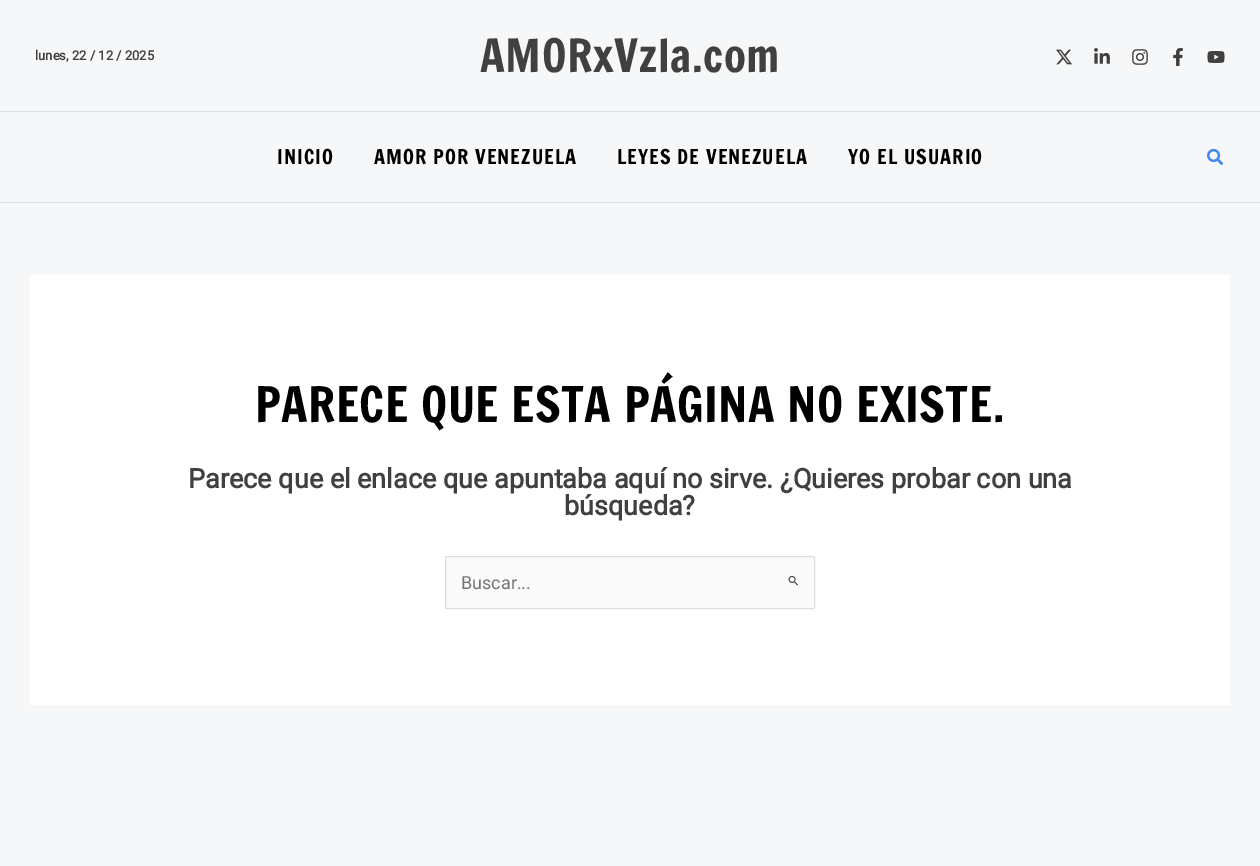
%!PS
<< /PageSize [1260 866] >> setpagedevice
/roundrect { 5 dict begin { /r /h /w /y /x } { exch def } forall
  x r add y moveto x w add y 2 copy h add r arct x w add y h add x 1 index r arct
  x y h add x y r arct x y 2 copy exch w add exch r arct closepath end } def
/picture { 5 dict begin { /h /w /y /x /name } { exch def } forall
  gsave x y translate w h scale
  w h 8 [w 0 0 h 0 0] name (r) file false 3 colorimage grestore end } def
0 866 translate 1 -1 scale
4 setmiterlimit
0.965 0.969 0.973 setrgbcolor
0 0 1260 866 rectfill
0.867 0.871 0.875 setrgbcolor
0 111 1260 1 rectfill
/Roboto-Bold [13 0 0 -13 0 0] selectfont
0.251 setgray
35 60 moveto (lunes, 22 / 12 / 2025) show
/FrancoisOne-Regular [45 0 0 -45 0 0] selectfont
480 72 moveto 0.5 0 (AMORxVzla.com) ashow
(img1.rgb) 1056 49 16 16 picture
(img2.rgb) 1094 48 16 16 picture
(img3.rgb) 1132 49 16 16 picture
(img4.rgb) 1173 48 10 18 picture
(img5.rgb) 1207 51 18 12 picture
0.867 0.871 0.875 setrgbcolor
0 202 1260 1 rectfill
/FrancoisOne-Regular [20 0 0 -20 0 0] selectfont
0 setgray
277 164 moveto 1 0 (INICIO) ashow
374 164 moveto 1 0 (AMOR POR VENEZUELA) ashow
617 164 moveto 1 0 (LEYES DE VENEZUELA) ashow
848 164 moveto 1 0 (YO EL USUARIO) ashow
(img6.rgb) 1207 148 16 17 picture
1 setgray
30 275 1200 430 rectfill
/FrancoisOne-Regular [48 0 0 -48 0 0] selectfont
0 setgray
255 422 moveto 0.5 0 (PARECE QUE ESTA PÁGINA NO EXISTE.) ashow
/Roboto-Bold [27 0 0 -27 0 0] selectfont
0.251 setgray
188 488 moveto (Parece que el enlace que apuntaba aquí no sirve. ¿Quieres probar con una) show
564 515 moveto (búsqueda?) show
0.98 setgray
445.5 556.5 369 52 1.5 roundrect gsave fill grestore
0.867 setgray
stroke
/Roboto-Regular [18 0 0 -18 0 0] selectfont
0.459 setgray
461 589 moveto (Buscar...) show
(img7.rgb) 788 575 10 11 picture
showpage
